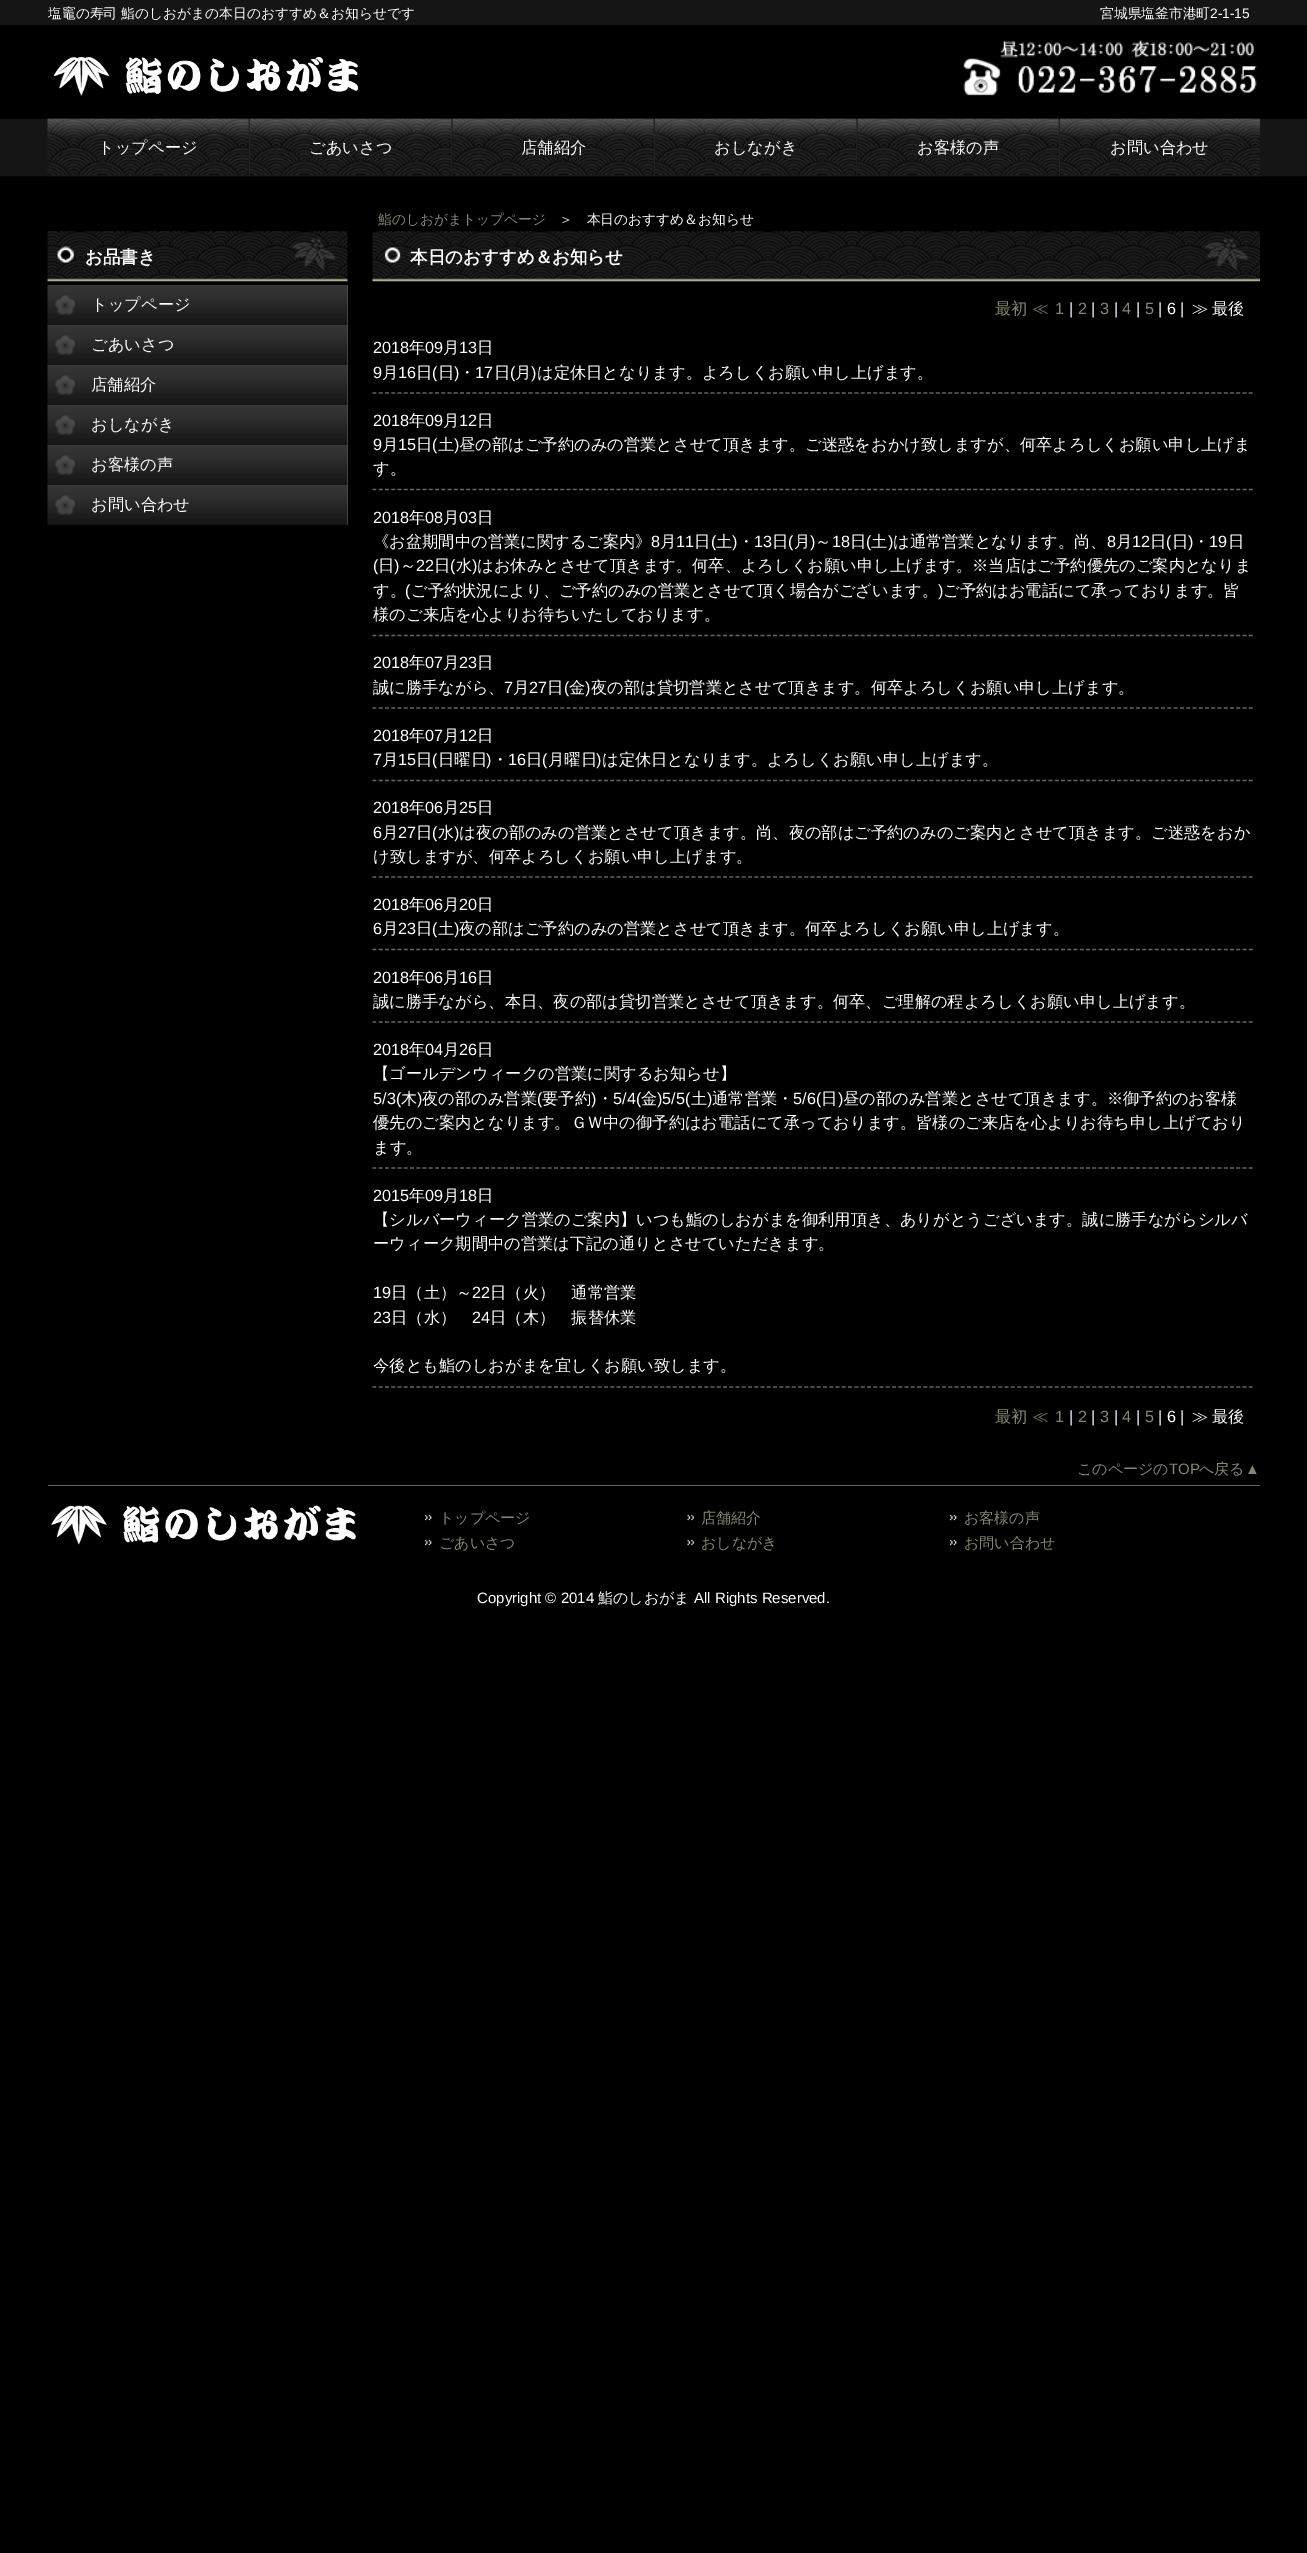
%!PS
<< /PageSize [1307 2553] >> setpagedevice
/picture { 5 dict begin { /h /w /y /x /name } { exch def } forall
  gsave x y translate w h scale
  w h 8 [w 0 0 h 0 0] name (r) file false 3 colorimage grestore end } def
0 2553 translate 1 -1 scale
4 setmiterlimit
0 setgray
0 0 1307 2553 rectfill
(img1.rgb) 0 0 1307 177 picture
/WenQuanYiZenHei-Medium [13.75 0 0 -13.75 0 0] selectfont
1 setgray
48 18 moveto (塩竈の寿司 鮨のしおがまの本日のおすすめ＆お知らせです) show
1100 18 moveto (宮城県塩釜市港町) show
/LiberationSans-Regular [13.75 0 0 -13.75 0 0] selectfont
1210 18 moveto (2-1-15) show
(img2.rgb) 53 57 306 39 picture
(img3.rgb) 963 40 294 56 picture
0.133 setgray
249 119 1 57 rectfill
(img4.rgb) 47 118 202 59 picture
/WenQuanYiZenHei-Medium [16.25 0 0 -16.25 0 0] selectfont
1 setgray
98 153 moveto (トップページ) show
0.133 setgray
451 119 1 57 rectfill
(img5.rgb) 250 118 202 59 picture
1 setgray
309 153 moveto (ごあいさつ) show
0.133 setgray
654 119 1 57 rectfill
(img6.rgb) 452 118 202 59 picture
1 setgray
521 153 moveto (店舗紹介) show
0.133 setgray
856 119 1 57 rectfill
(img7.rgb) 655 118 202 59 picture
1 setgray
714 153 moveto (おしながき) show
0.133 setgray
1059 119 1 57 rectfill
(img8.rgb) 857 118 202 59 picture
1 setgray
917 153 moveto (お客様の声) show
(img9.rgb) 1060 118 200 59 picture
1110 153 moveto (お問い合わせ) show
/WenQuanYiZenHei-Medium [13.75 0 0 -13.75 0 0] selectfont
0.514 0.529 0.439 setrgbcolor
378 224 moveto (鮨のしおがまトップページ) show
1 setgray
559 224 moveto (＞　本日のおすすめ＆お知らせ) show
(img10.rgb) 47 231 301 51 picture
/WenQuanYiZenHei-Bold [17.5 0 0 -17.5 0 0] selectfont
85 263 moveto (お品書き) show
0.4 setgray
347 285 1 240 rectfill
(img11.rgb) 47 285 301 40 picture
/WenQuanYiZenHei-Medium [16.25 0 0 -16.25 0 0] selectfont
1 setgray
91 310 moveto (トップページ) show
(img12.rgb) 47 325 301 40 picture
91 350 moveto (ごあいさつ) show
(img12.rgb) 47 365 301 40 picture
91 390 moveto (店舗紹介) show
(img12.rgb) 47 405 301 40 picture
91 430 moveto (おしながき) show
(img12.rgb) 47 445 301 40 picture
91 470 moveto (お客様の声) show
(img12.rgb) 47 485 301 40 picture
91 510 moveto (お問い合わせ) show
(img13.rgb) 372 231 888 51 picture
/WenQuanYiZenHei-Bold [17.5 0 0 -17.5 0 0] selectfont
410 263 moveto (本日のおすすめ＆お知らせ) show
/WenQuanYiZenHei-Medium [16.25 0 0 -16.25 0 0] selectfont
0.514 0.529 0.439 setrgbcolor
995 314 moveto (最初) show
1032 314 moveto (≪) show
/LiberationSans-Regular [16.25 0 0 -16.25 0 0] selectfont
1055 314 moveto (1) show
1 setgray
1069 314 moveto (|) show
0.514 0.529 0.439 setrgbcolor
1078 314 moveto (2) show
1 setgray
1091 314 moveto (|) show
0.514 0.529 0.439 setrgbcolor
1100 314 moveto (3) show
1 setgray
1114 314 moveto (|) show
0.514 0.529 0.439 setrgbcolor
1122 314 moveto (4) show
1 setgray
1136 314 moveto (|) show
0.514 0.529 0.439 setrgbcolor
1145 314 moveto (5) show
1 setgray
1158 314 moveto (| 6 |) show
/WenQuanYiZenHei-Medium [16.25 0 0 -16.25 0 0] selectfont
1192 314 moveto (≫) show
1212 314 moveto (最後) show
/LiberationSans-Regular [16.25 0 0 -16.25 0 0] selectfont
373 353 moveto (2018) show
/WenQuanYiZenHei-Medium [16.25 0 0 -16.25 0 0] selectfont
409 353 moveto (年) show
/LiberationSans-Regular [16.25 0 0 -16.25 0 0] selectfont
425 353 moveto (09) show
/WenQuanYiZenHei-Medium [16.25 0 0 -16.25 0 0] selectfont
443 353 moveto (月) show
/LiberationSans-Regular [16.25 0 0 -16.25 0 0] selectfont
459 353 moveto (13) show
/WenQuanYiZenHei-Medium [16.25 0 0 -16.25 0 0] selectfont
477 353 moveto (日) show
0.4 setgray
1.2 setlinewidth
[3.75 2.51] 0 setdash
newpath 372.5 393 moveto 1254 393 lineto stroke
/LiberationSans-Regular [16.25 0 0 -16.25 0 0] selectfont
1 setgray
373 378 moveto (9) show
/WenQuanYiZenHei-Medium [16.25 0 0 -16.25 0 0] selectfont
382 378 moveto (月) show
/LiberationSans-Regular [16.25 0 0 -16.25 0 0] selectfont
398 378 moveto (16) show
/WenQuanYiZenHei-Medium [16.25 0 0 -16.25 0 0] selectfont
416 378 moveto (日) show
/LiberationSans-Regular [16.25 0 0 -16.25 0 0] selectfont
432 378 moveto (\() show
/WenQuanYiZenHei-Medium [16.25 0 0 -16.25 0 0] selectfont
438 378 moveto (日) show
/LiberationSans-Regular [16.25 0 0 -16.25 0 0] selectfont
454 378 moveto (\)) show
/WenQuanYiZenHei-Medium [16.25 0 0 -16.25 0 0] selectfont
459 378 moveto (・) show
/LiberationSans-Regular [16.25 0 0 -16.25 0 0] selectfont
475 378 moveto (17) show
/WenQuanYiZenHei-Medium [16.25 0 0 -16.25 0 0] selectfont
494 378 moveto (日) show
/LiberationSans-Regular [16.25 0 0 -16.25 0 0] selectfont
510 378 moveto (\() show
/WenQuanYiZenHei-Medium [16.25 0 0 -16.25 0 0] selectfont
515 378 moveto (月) show
/LiberationSans-Regular [16.25 0 0 -16.25 0 0] selectfont
531 378 moveto (\)) show
/WenQuanYiZenHei-Medium [16.25 0 0 -16.25 0 0] selectfont
537 378 moveto (は定休日となります。よろしくお願い申し上げます。) show
/LiberationSans-Regular [16.25 0 0 -16.25 0 0] selectfont
373 426 moveto (2018) show
/WenQuanYiZenHei-Medium [16.25 0 0 -16.25 0 0] selectfont
409 426 moveto (年) show
/LiberationSans-Regular [16.25 0 0 -16.25 0 0] selectfont
425 426 moveto (09) show
/WenQuanYiZenHei-Medium [16.25 0 0 -16.25 0 0] selectfont
443 426 moveto (月) show
/LiberationSans-Regular [16.25 0 0 -16.25 0 0] selectfont
459 426 moveto (12) show
/WenQuanYiZenHei-Medium [16.25 0 0 -16.25 0 0] selectfont
477 426 moveto (日) show
0.4 setgray
newpath 372.5 489.5 moveto 1254 489.5 lineto stroke
/LiberationSans-Regular [16.25 0 0 -16.25 0 0] selectfont
1 setgray
373 450 moveto (9) show
/WenQuanYiZenHei-Medium [16.25 0 0 -16.25 0 0] selectfont
382 450 moveto (月) show
/LiberationSans-Regular [16.25 0 0 -16.25 0 0] selectfont
398 450 moveto (15) show
/WenQuanYiZenHei-Medium [16.25 0 0 -16.25 0 0] selectfont
416 450 moveto (日) show
/LiberationSans-Regular [16.25 0 0 -16.25 0 0] selectfont
432 450 moveto (\() show
/WenQuanYiZenHei-Medium [16.25 0 0 -16.25 0 0] selectfont
438 450 moveto (土) show
/LiberationSans-Regular [16.25 0 0 -16.25 0 0] selectfont
454 450 moveto (\)) show
/WenQuanYiZenHei-Medium [16.25 0 0 -16.25 0 0] selectfont
459 450 moveto (昼の部はご予約のみの営業とさせて頂きます。ご迷惑をおかけ致しますが、何卒よろしくお願い申し上げま) show
373 474 moveto (す。) show
/LiberationSans-Regular [16.25 0 0 -16.25 0 0] selectfont
373 523 moveto (2018) show
/WenQuanYiZenHei-Medium [16.25 0 0 -16.25 0 0] selectfont
409 523 moveto (年) show
/LiberationSans-Regular [16.25 0 0 -16.25 0 0] selectfont
425 523 moveto (08) show
/WenQuanYiZenHei-Medium [16.25 0 0 -16.25 0 0] selectfont
443 523 moveto (月) show
/LiberationSans-Regular [16.25 0 0 -16.25 0 0] selectfont
459 523 moveto (03) show
/WenQuanYiZenHei-Medium [16.25 0 0 -16.25 0 0] selectfont
477 523 moveto (日) show
0.4 setgray
newpath 372.5 635.5 moveto 1254 635.5 lineto stroke
1 setgray
373 547 moveto (《お盆期間中の営業に関するご案内》) show
/LiberationSans-Regular [16.25 0 0 -16.25 0 0] selectfont
651 547 moveto (8) show
/WenQuanYiZenHei-Medium [16.25 0 0 -16.25 0 0] selectfont
660 547 moveto (月) show
/LiberationSans-Regular [16.25 0 0 -16.25 0 0] selectfont
676 547 moveto (11) show
/WenQuanYiZenHei-Medium [16.25 0 0 -16.25 0 0] selectfont
694 547 moveto (日) show
/LiberationSans-Regular [16.25 0 0 -16.25 0 0] selectfont
711 547 moveto (\() show
/WenQuanYiZenHei-Medium [16.25 0 0 -16.25 0 0] selectfont
716 547 moveto (土) show
/LiberationSans-Regular [16.25 0 0 -16.25 0 0] selectfont
732 547 moveto (\)) show
/WenQuanYiZenHei-Medium [16.25 0 0 -16.25 0 0] selectfont
738 547 moveto (・) show
/LiberationSans-Regular [16.25 0 0 -16.25 0 0] selectfont
754 547 moveto (13) show
/WenQuanYiZenHei-Medium [16.25 0 0 -16.25 0 0] selectfont
772 547 moveto (日) show
/LiberationSans-Regular [16.25 0 0 -16.25 0 0] selectfont
788 547 moveto (\() show
/WenQuanYiZenHei-Medium [16.25 0 0 -16.25 0 0] selectfont
794 547 moveto (月) show
/LiberationSans-Regular [16.25 0 0 -16.25 0 0] selectfont
810 547 moveto (\)) show
/WenQuanYiZenHei-Medium [16.25 0 0 -16.25 0 0] selectfont
815 547 moveto (～) show
/LiberationSans-Regular [16.25 0 0 -16.25 0 0] selectfont
832 547 moveto (18) show
/WenQuanYiZenHei-Medium [16.25 0 0 -16.25 0 0] selectfont
850 547 moveto (日) show
/LiberationSans-Regular [16.25 0 0 -16.25 0 0] selectfont
866 547 moveto (\() show
/WenQuanYiZenHei-Medium [16.25 0 0 -16.25 0 0] selectfont
871 547 moveto (土) show
/LiberationSans-Regular [16.25 0 0 -16.25 0 0] selectfont
888 547 moveto (\)) show
/WenQuanYiZenHei-Medium [16.25 0 0 -16.25 0 0] selectfont
893 547 moveto (は通常営業となります。尚、) show
/LiberationSans-Regular [16.25 0 0 -16.25 0 0] selectfont
1107 547 moveto (8) show
/WenQuanYiZenHei-Medium [16.25 0 0 -16.25 0 0] selectfont
1116 547 moveto (月) show
/LiberationSans-Regular [16.25 0 0 -16.25 0 0] selectfont
1132 547 moveto (12) show
/WenQuanYiZenHei-Medium [16.25 0 0 -16.25 0 0] selectfont
1150 547 moveto (日) show
/LiberationSans-Regular [16.25 0 0 -16.25 0 0] selectfont
1166 547 moveto (\() show
/WenQuanYiZenHei-Medium [16.25 0 0 -16.25 0 0] selectfont
1172 547 moveto (日) show
/LiberationSans-Regular [16.25 0 0 -16.25 0 0] selectfont
1188 547 moveto (\)) show
/WenQuanYiZenHei-Medium [16.25 0 0 -16.25 0 0] selectfont
1193 547 moveto (・) show
/LiberationSans-Regular [16.25 0 0 -16.25 0 0] selectfont
1209 547 moveto (19) show
/WenQuanYiZenHei-Medium [16.25 0 0 -16.25 0 0] selectfont
1228 547 moveto (日) show
/LiberationSans-Regular [16.25 0 0 -16.25 0 0] selectfont
373 571 moveto (\() show
/WenQuanYiZenHei-Medium [16.25 0 0 -16.25 0 0] selectfont
378 571 moveto (日) show
/LiberationSans-Regular [16.25 0 0 -16.25 0 0] selectfont
394 571 moveto (\)) show
/WenQuanYiZenHei-Medium [16.25 0 0 -16.25 0 0] selectfont
400 571 moveto (～) show
/LiberationSans-Regular [16.25 0 0 -16.25 0 0] selectfont
416 571 moveto (22) show
/WenQuanYiZenHei-Medium [16.25 0 0 -16.25 0 0] selectfont
434 571 moveto (日) show
/LiberationSans-Regular [16.25 0 0 -16.25 0 0] selectfont
450 571 moveto (\() show
/WenQuanYiZenHei-Medium [16.25 0 0 -16.25 0 0] selectfont
456 571 moveto (水) show
/LiberationSans-Regular [16.25 0 0 -16.25 0 0] selectfont
472 571 moveto (\)) show
/WenQuanYiZenHei-Medium [16.25 0 0 -16.25 0 0] selectfont
477 571 moveto (はお休みとさせて頂きます。何卒、よろしくお願い申し上げます。※当店はご予約優先のご案内となりま) show
373 596 moveto (す。) show
/LiberationSans-Regular [16.25 0 0 -16.25 0 0] selectfont
405 596 moveto (\() show
/WenQuanYiZenHei-Medium [16.25 0 0 -16.25 0 0] selectfont
411 596 moveto (ご予約状況により、ご予約のみの営業とさせて頂く場合がございます。) show
/LiberationSans-Regular [16.25 0 0 -16.25 0 0] selectfont
938 596 moveto (\)) show
/WenQuanYiZenHei-Medium [16.25 0 0 -16.25 0 0] selectfont
943 596 moveto (ご予約はお電話にて承っております。皆) show
373 620 moveto (様のご来店を心よりお待ちいたしております。) show
/LiberationSans-Regular [16.25 0 0 -16.25 0 0] selectfont
373 668 moveto (2018) show
/WenQuanYiZenHei-Medium [16.25 0 0 -16.25 0 0] selectfont
409 668 moveto (年) show
/LiberationSans-Regular [16.25 0 0 -16.25 0 0] selectfont
425 668 moveto (07) show
/WenQuanYiZenHei-Medium [16.25 0 0 -16.25 0 0] selectfont
443 668 moveto (月) show
/LiberationSans-Regular [16.25 0 0 -16.25 0 0] selectfont
459 668 moveto (23) show
/WenQuanYiZenHei-Medium [16.25 0 0 -16.25 0 0] selectfont
477 668 moveto (日) show
0.4 setgray
newpath 372.5 708 moveto 1254 708 lineto stroke
1 setgray
373 693 moveto (誠に勝手ながら、) show
/LiberationSans-Regular [16.25 0 0 -16.25 0 0] selectfont
504 693 moveto (7) show
/WenQuanYiZenHei-Medium [16.25 0 0 -16.25 0 0] selectfont
513 693 moveto (月) show
/LiberationSans-Regular [16.25 0 0 -16.25 0 0] selectfont
529 693 moveto (27) show
/WenQuanYiZenHei-Medium [16.25 0 0 -16.25 0 0] selectfont
547 693 moveto (日) show
/LiberationSans-Regular [16.25 0 0 -16.25 0 0] selectfont
564 693 moveto (\() show
/WenQuanYiZenHei-Medium [16.25 0 0 -16.25 0 0] selectfont
569 693 moveto (金) show
/LiberationSans-Regular [16.25 0 0 -16.25 0 0] selectfont
585 693 moveto (\)) show
/WenQuanYiZenHei-Medium [16.25 0 0 -16.25 0 0] selectfont
591 693 moveto (夜の部は貸切営業とさせて頂きます。何卒よろしくお願い申し上げます。) show
/LiberationSans-Regular [16.25 0 0 -16.25 0 0] selectfont
373 741 moveto (2018) show
/WenQuanYiZenHei-Medium [16.25 0 0 -16.25 0 0] selectfont
409 741 moveto (年) show
/LiberationSans-Regular [16.25 0 0 -16.25 0 0] selectfont
425 741 moveto (07) show
/WenQuanYiZenHei-Medium [16.25 0 0 -16.25 0 0] selectfont
443 741 moveto (月) show
/LiberationSans-Regular [16.25 0 0 -16.25 0 0] selectfont
459 741 moveto (12) show
/WenQuanYiZenHei-Medium [16.25 0 0 -16.25 0 0] selectfont
477 741 moveto (日) show
0.4 setgray
newpath 372.5 780.5 moveto 1254 780.5 lineto stroke
/LiberationSans-Regular [16.25 0 0 -16.25 0 0] selectfont
1 setgray
373 765 moveto (7) show
/WenQuanYiZenHei-Medium [16.25 0 0 -16.25 0 0] selectfont
382 765 moveto (月) show
/LiberationSans-Regular [16.25 0 0 -16.25 0 0] selectfont
398 765 moveto (15) show
/WenQuanYiZenHei-Medium [16.25 0 0 -16.25 0 0] selectfont
416 765 moveto (日) show
/LiberationSans-Regular [16.25 0 0 -16.25 0 0] selectfont
432 765 moveto (\() show
/WenQuanYiZenHei-Medium [16.25 0 0 -16.25 0 0] selectfont
438 765 moveto (日曜日) show
/LiberationSans-Regular [16.25 0 0 -16.25 0 0] selectfont
486 765 moveto (\)) show
/WenQuanYiZenHei-Medium [16.25 0 0 -16.25 0 0] selectfont
492 765 moveto (・) show
/LiberationSans-Regular [16.25 0 0 -16.25 0 0] selectfont
508 765 moveto (16) show
/WenQuanYiZenHei-Medium [16.25 0 0 -16.25 0 0] selectfont
526 765 moveto (日) show
/LiberationSans-Regular [16.25 0 0 -16.25 0 0] selectfont
542 765 moveto (\() show
/WenQuanYiZenHei-Medium [16.25 0 0 -16.25 0 0] selectfont
548 765 moveto (月曜日) show
/LiberationSans-Regular [16.25 0 0 -16.25 0 0] selectfont
596 765 moveto (\)) show
/WenQuanYiZenHei-Medium [16.25 0 0 -16.25 0 0] selectfont
602 765 moveto (は定休日となります。よろしくお願い申し上げます。) show
/LiberationSans-Regular [16.25 0 0 -16.25 0 0] selectfont
373 813 moveto (2018) show
/WenQuanYiZenHei-Medium [16.25 0 0 -16.25 0 0] selectfont
409 813 moveto (年) show
/LiberationSans-Regular [16.25 0 0 -16.25 0 0] selectfont
425 813 moveto (06) show
/WenQuanYiZenHei-Medium [16.25 0 0 -16.25 0 0] selectfont
443 813 moveto (月) show
/LiberationSans-Regular [16.25 0 0 -16.25 0 0] selectfont
459 813 moveto (25) show
/WenQuanYiZenHei-Medium [16.25 0 0 -16.25 0 0] selectfont
477 813 moveto (日) show
0.4 setgray
newpath 372.5 877 moveto 1254 877 lineto stroke
/LiberationSans-Regular [16.25 0 0 -16.25 0 0] selectfont
1 setgray
373 838 moveto (6) show
/WenQuanYiZenHei-Medium [16.25 0 0 -16.25 0 0] selectfont
382 838 moveto (月) show
/LiberationSans-Regular [16.25 0 0 -16.25 0 0] selectfont
398 838 moveto (27) show
/WenQuanYiZenHei-Medium [16.25 0 0 -16.25 0 0] selectfont
416 838 moveto (日) show
/LiberationSans-Regular [16.25 0 0 -16.25 0 0] selectfont
432 838 moveto (\() show
/WenQuanYiZenHei-Medium [16.25 0 0 -16.25 0 0] selectfont
438 838 moveto (水) show
/LiberationSans-Regular [16.25 0 0 -16.25 0 0] selectfont
454 838 moveto (\)) show
/WenQuanYiZenHei-Medium [16.25 0 0 -16.25 0 0] selectfont
459 838 moveto (は夜の部のみの営業とさせて頂きます。尚、夜の部はご予約のみのご案内とさせて頂きます。ご迷惑をおか) show
373 862 moveto (け致しますが、何卒よろしくお願い申し上げます。) show
/LiberationSans-Regular [16.25 0 0 -16.25 0 0] selectfont
373 910 moveto (2018) show
/WenQuanYiZenHei-Medium [16.25 0 0 -16.25 0 0] selectfont
409 910 moveto (年) show
/LiberationSans-Regular [16.25 0 0 -16.25 0 0] selectfont
425 910 moveto (06) show
/WenQuanYiZenHei-Medium [16.25 0 0 -16.25 0 0] selectfont
443 910 moveto (月) show
/LiberationSans-Regular [16.25 0 0 -16.25 0 0] selectfont
459 910 moveto (20) show
/WenQuanYiZenHei-Medium [16.25 0 0 -16.25 0 0] selectfont
477 910 moveto (日) show
0.4 setgray
newpath 372.5 949.5 moveto 1254 949.5 lineto stroke
/LiberationSans-Regular [16.25 0 0 -16.25 0 0] selectfont
1 setgray
373 934 moveto (6) show
/WenQuanYiZenHei-Medium [16.25 0 0 -16.25 0 0] selectfont
382 934 moveto (月) show
/LiberationSans-Regular [16.25 0 0 -16.25 0 0] selectfont
398 934 moveto (23) show
/WenQuanYiZenHei-Medium [16.25 0 0 -16.25 0 0] selectfont
416 934 moveto (日) show
/LiberationSans-Regular [16.25 0 0 -16.25 0 0] selectfont
432 934 moveto (\() show
/WenQuanYiZenHei-Medium [16.25 0 0 -16.25 0 0] selectfont
438 934 moveto (土) show
/LiberationSans-Regular [16.25 0 0 -16.25 0 0] selectfont
454 934 moveto (\)) show
/WenQuanYiZenHei-Medium [16.25 0 0 -16.25 0 0] selectfont
459 934 moveto (夜の部はご予約のみの営業とさせて頂きます。何卒よろしくお願い申し上げます。) show
/LiberationSans-Regular [16.25 0 0 -16.25 0 0] selectfont
373 983 moveto (2018) show
/WenQuanYiZenHei-Medium [16.25 0 0 -16.25 0 0] selectfont
409 983 moveto (年) show
/LiberationSans-Regular [16.25 0 0 -16.25 0 0] selectfont
425 983 moveto (06) show
/WenQuanYiZenHei-Medium [16.25 0 0 -16.25 0 0] selectfont
443 983 moveto (月) show
/LiberationSans-Regular [16.25 0 0 -16.25 0 0] selectfont
459 983 moveto (16) show
/WenQuanYiZenHei-Medium [16.25 0 0 -16.25 0 0] selectfont
477 983 moveto (日) show
0.4 setgray
newpath 372.5 1022 moveto 1254 1022 lineto stroke
1 setgray
373 1007 moveto (誠に勝手ながら、本日、夜の部は貸切営業とさせて頂きます。何卒、ご理解の程よろしくお願い申し上げます。) show
/LiberationSans-Regular [16.25 0 0 -16.25 0 0] selectfont
373 1055 moveto (2018) show
/WenQuanYiZenHei-Medium [16.25 0 0 -16.25 0 0] selectfont
409 1055 moveto (年) show
/LiberationSans-Regular [16.25 0 0 -16.25 0 0] selectfont
425 1055 moveto (04) show
/WenQuanYiZenHei-Medium [16.25 0 0 -16.25 0 0] selectfont
443 1055 moveto (月) show
/LiberationSans-Regular [16.25 0 0 -16.25 0 0] selectfont
459 1055 moveto (26) show
/WenQuanYiZenHei-Medium [16.25 0 0 -16.25 0 0] selectfont
477 1055 moveto (日) show
0.4 setgray
newpath 372.5 1168 moveto 1254 1168 lineto stroke
1 setgray
373 1079 moveto (【ゴールデンウィークの営業に関するお知らせ】) show
/LiberationSans-Regular [16.25 0 0 -16.25 0 0] selectfont
373 1104 moveto (5/3\() show
/WenQuanYiZenHei-Medium [16.25 0 0 -16.25 0 0] selectfont
401 1104 moveto (木) show
/LiberationSans-Regular [16.25 0 0 -16.25 0 0] selectfont
417 1104 moveto (\)) show
/WenQuanYiZenHei-Medium [16.25 0 0 -16.25 0 0] selectfont
422 1104 moveto (夜の部のみ営業) show
/LiberationSans-Regular [16.25 0 0 -16.25 0 0] selectfont
537 1104 moveto (\() show
/WenQuanYiZenHei-Medium [16.25 0 0 -16.25 0 0] selectfont
542 1104 moveto (要予約) show
/LiberationSans-Regular [16.25 0 0 -16.25 0 0] selectfont
591 1104 moveto (\)) show
/WenQuanYiZenHei-Medium [16.25 0 0 -16.25 0 0] selectfont
597 1104 moveto (・) show
/LiberationSans-Regular [16.25 0 0 -16.25 0 0] selectfont
613 1104 moveto (5/4\() show
/WenQuanYiZenHei-Medium [16.25 0 0 -16.25 0 0] selectfont
641 1104 moveto (金) show
/LiberationSans-Regular [16.25 0 0 -16.25 0 0] selectfont
657 1104 moveto (\)5/5\() show
/WenQuanYiZenHei-Medium [16.25 0 0 -16.25 0 0] selectfont
691 1104 moveto (土) show
/LiberationSans-Regular [16.25 0 0 -16.25 0 0] selectfont
707 1104 moveto (\)) show
/WenQuanYiZenHei-Medium [16.25 0 0 -16.25 0 0] selectfont
712 1104 moveto (通常営業・) show
/LiberationSans-Regular [16.25 0 0 -16.25 0 0] selectfont
793 1104 moveto (5/6\() show
/WenQuanYiZenHei-Medium [16.25 0 0 -16.25 0 0] selectfont
821 1104 moveto (日) show
/LiberationSans-Regular [16.25 0 0 -16.25 0 0] selectfont
838 1104 moveto (\)) show
/WenQuanYiZenHei-Medium [16.25 0 0 -16.25 0 0] selectfont
843 1104 moveto (昼の部のみ営業とさせて頂きます。※御予約のお客様) show
373 1128 moveto (優先のご案内となります。ＧＷ中の御予約はお電話にて承っております。皆様のご来店を心よりお待ち申し上げており) show
373 1153 moveto (ます。) show
/LiberationSans-Regular [16.25 0 0 -16.25 0 0] selectfont
373 1201 moveto (2015) show
/WenQuanYiZenHei-Medium [16.25 0 0 -16.25 0 0] selectfont
409 1201 moveto (年) show
/LiberationSans-Regular [16.25 0 0 -16.25 0 0] selectfont
425 1201 moveto (09) show
/WenQuanYiZenHei-Medium [16.25 0 0 -16.25 0 0] selectfont
443 1201 moveto (月) show
/LiberationSans-Regular [16.25 0 0 -16.25 0 0] selectfont
459 1201 moveto (18) show
/WenQuanYiZenHei-Medium [16.25 0 0 -16.25 0 0] selectfont
477 1201 moveto (日) show
0.4 setgray
newpath 372.5 1387 moveto 1254 1387 lineto stroke
1 setgray
373 1225 moveto (【シルバーウィーク営業のご案内】いつも鮨のしおがまを御利用頂き、ありがとうございます。誠に勝手ながらシルバ) show
373 1249 moveto (ーウィーク期間中の営業は下記の通りとさせていただきます。) show
/LiberationSans-Regular [16.25 0 0 -16.25 0 0] selectfont
373 1298 moveto (19) show
/WenQuanYiZenHei-Medium [16.25 0 0 -16.25 0 0] selectfont
391 1298 moveto (日（土）～) show
/LiberationSans-Regular [16.25 0 0 -16.25 0 0] selectfont
472 1298 moveto (22) show
/WenQuanYiZenHei-Medium [16.25 0 0 -16.25 0 0] selectfont
490 1298 moveto (日（火）　通常営業) show
/LiberationSans-Regular [16.25 0 0 -16.25 0 0] selectfont
373 1323 moveto (23) show
/WenQuanYiZenHei-Medium [16.25 0 0 -16.25 0 0] selectfont
391 1323 moveto (日（水）) show
/LiberationSans-Regular [16.25 0 0 -16.25 0 0] selectfont
472 1323 moveto (24) show
/WenQuanYiZenHei-Medium [16.25 0 0 -16.25 0 0] selectfont
490 1323 moveto (日（木）　振替休業) show
373 1371 moveto (今後とも鮨のしおがまを宜しくお願い致します。) show
0.514 0.529 0.439 setrgbcolor
995 1422 moveto (最初) show
1032 1422 moveto (≪) show
/LiberationSans-Regular [16.25 0 0 -16.25 0 0] selectfont
1055 1422 moveto (1) show
1 setgray
1069 1422 moveto (|) show
0.514 0.529 0.439 setrgbcolor
1078 1422 moveto (2) show
1 setgray
1091 1422 moveto (|) show
0.514 0.529 0.439 setrgbcolor
1100 1422 moveto (3) show
1 setgray
1114 1422 moveto (|) show
0.514 0.529 0.439 setrgbcolor
1122 1422 moveto (4) show
1 setgray
1136 1422 moveto (|) show
0.514 0.529 0.439 setrgbcolor
1145 1422 moveto (5) show
1 setgray
1158 1422 moveto (| 6 |) show
/WenQuanYiZenHei-Medium [16.25 0 0 -16.25 0 0] selectfont
1192 1422 moveto (≫) show
1212 1422 moveto (最後) show
/WenQuanYiZenHei-Medium [15 0 0 -15 0 0] selectfont
0.514 0.529 0.439 setrgbcolor
1077 1474 moveto (このページの) show
/LiberationSans-Regular [15 0 0 -15 0 0] selectfont
1169 1474 moveto (TOP) show
/WenQuanYiZenHei-Medium [15 0 0 -15 0 0] selectfont
1199 1474 moveto (へ戻る) show
/LiberationSans-Regular [15 0 0 -15 0 0] selectfont
1245 1474 moveto (▲) show
0.4 setgray
48 1485 1212 1 rectfill
(img14.rgb) 51 1505 305 40 picture
(img15.rgb) 424 1514 8 7 picture
/WenQuanYiZenHei-Medium [15 0 0 -15 0 0] selectfont
0.514 0.529 0.439 setrgbcolor
439 1523 moveto (トップページ) show
(img15.rgb) 424 1539 8 7 picture
439 1548 moveto (ごあいさつ) show
(img16.rgb) 687 1514 7 7 picture
701 1523 moveto (店舗紹介) show
(img16.rgb) 687 1539 7 7 picture
701 1548 moveto (おしながき) show
(img17.rgb) 949 1514 8 7 picture
964 1523 moveto (お客様の声) show
(img17.rgb) 949 1539 8 7 picture
964 1548 moveto (お問い合わせ) show
/LiberationSans-Regular [15 0 0 -15 0 0] selectfont
1 setgray
477 1603 moveto (Copyright © 2014) show
/WenQuanYiZenHei-Medium [15 0 0 -15 0 0] selectfont
598 1603 moveto (鮨のしおがま) show
/LiberationSans-Regular [15 0 0 -15 0 0] selectfont
694 1603 moveto (All Rights Reserved.) show
showpage
